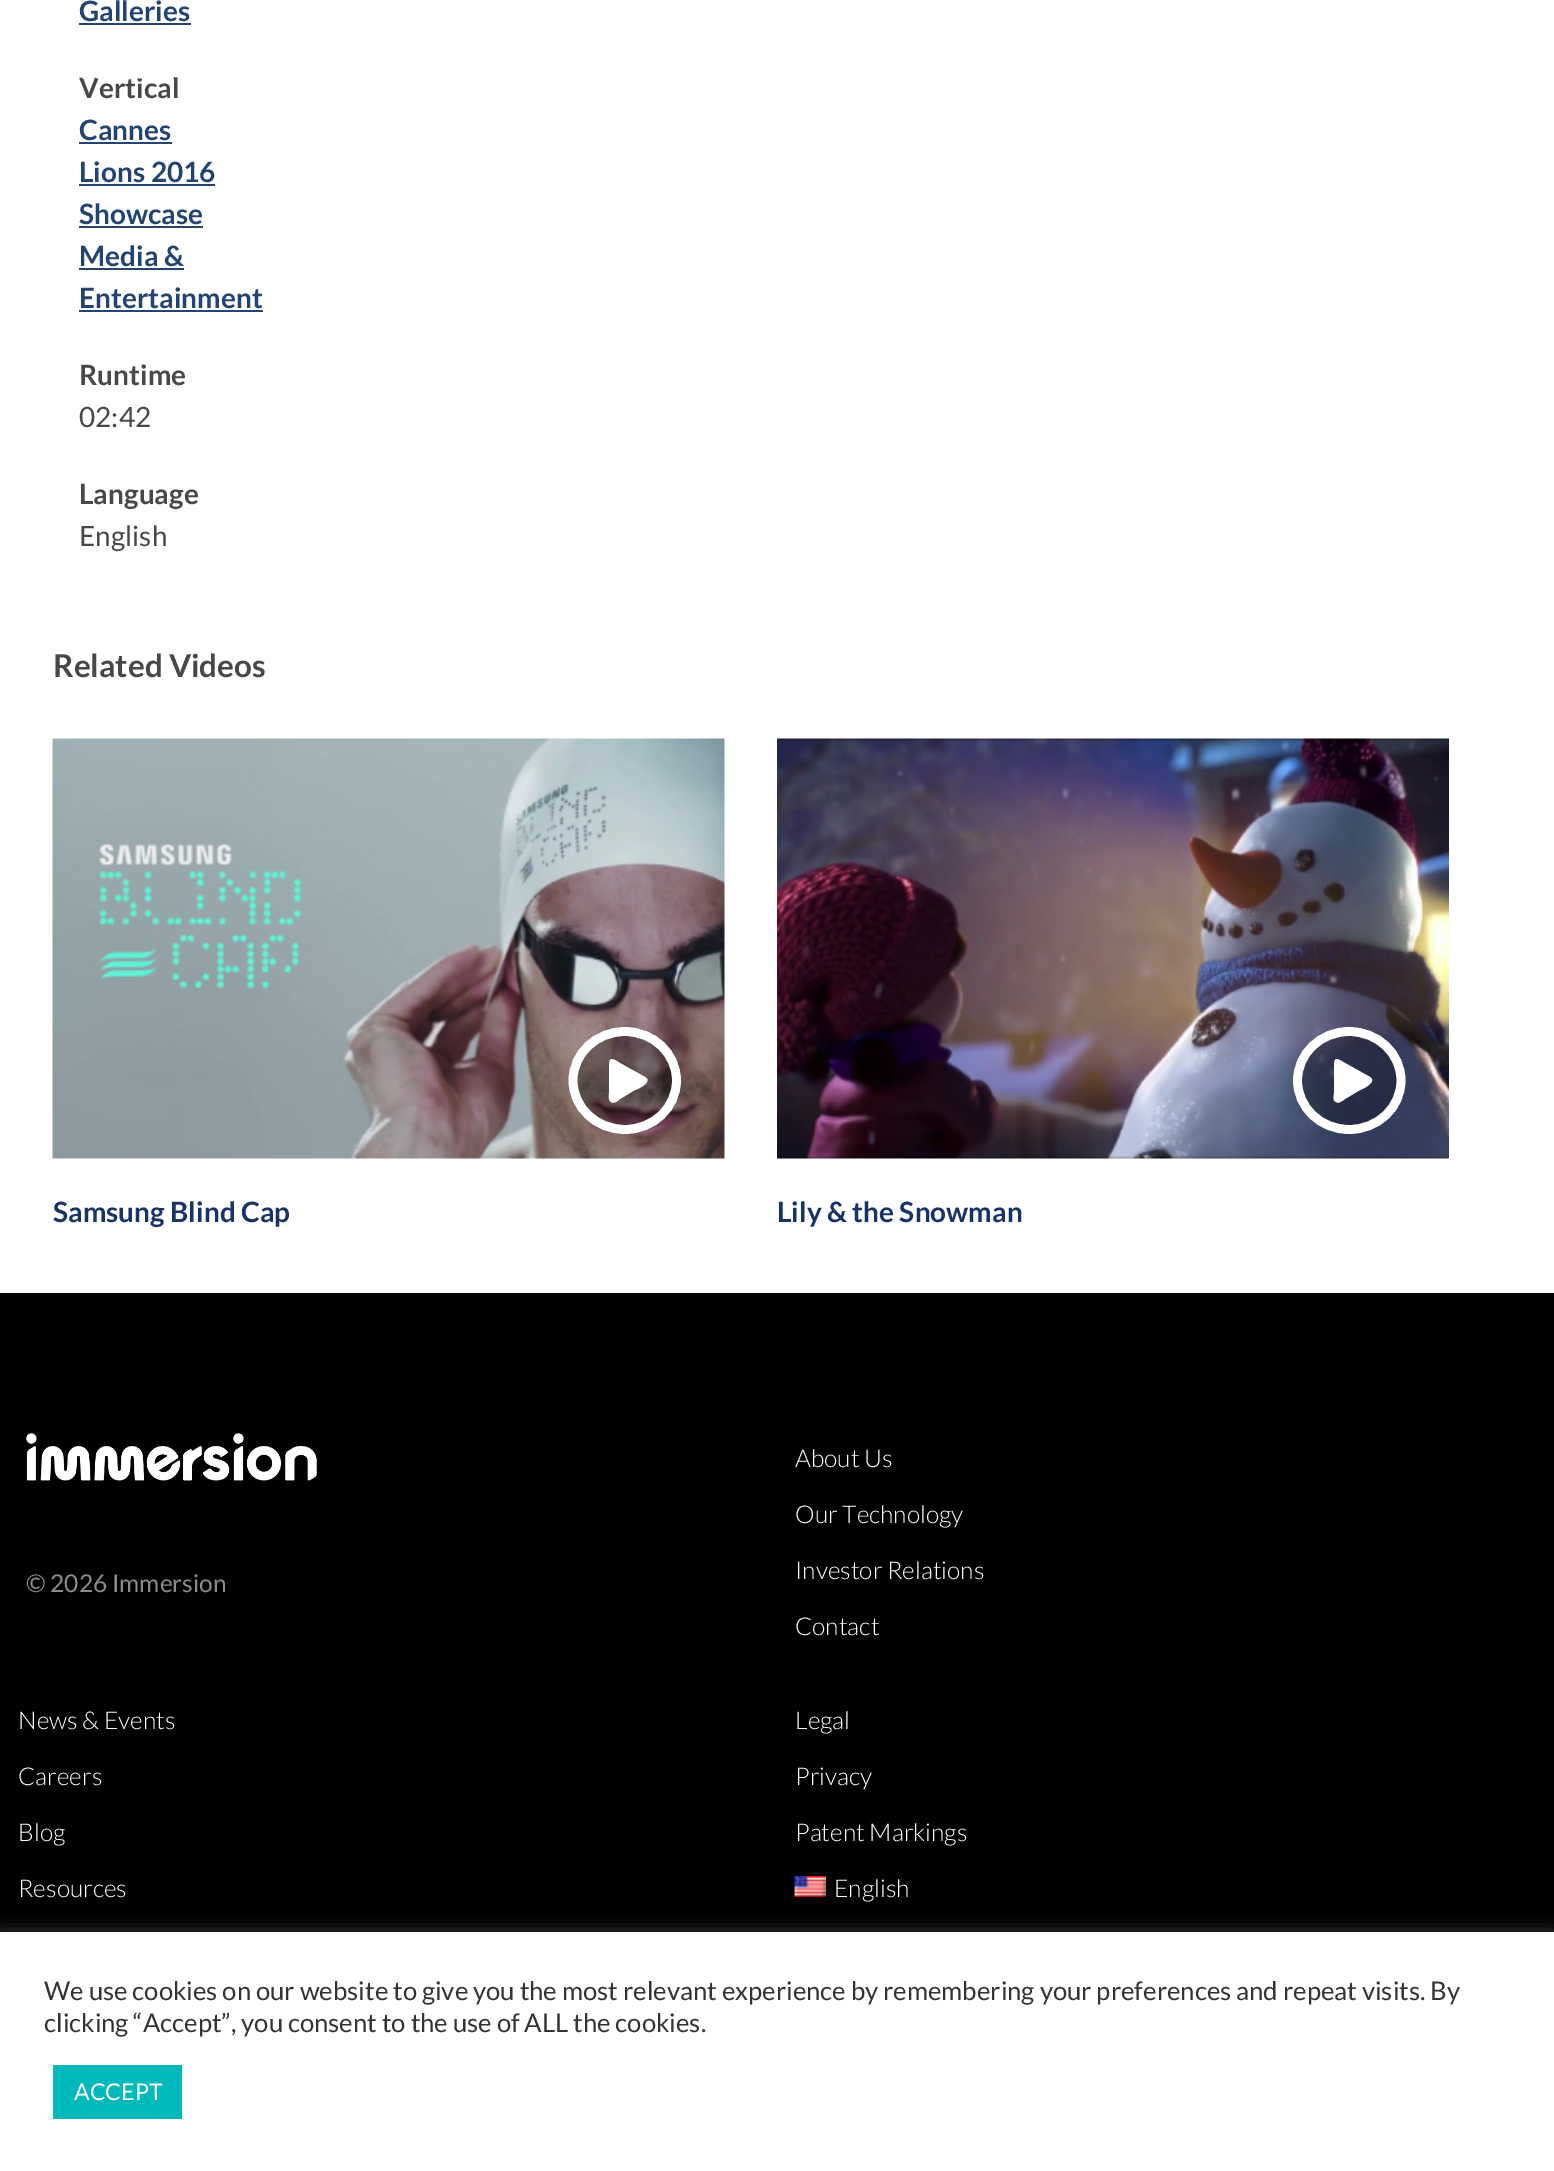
%!PS
<< /PageSize [1554 2171] /PageUsesTransparency true >> setpagedevice
/alpha { dup .setfillconstantalpha .setstrokeconstantalpha } def
/roundrect { 5 dict begin { /r /h /w /y /x } { exch def } forall
  x r add y moveto x w add y 2 copy h add r arct x w add y h add x 1 index r arct
  x y h add x y r arct x y 2 copy exch w add exch r arct closepath end } def
/shadow { 12 dict begin { /a /b /q /h /w /y /x } { exch def } forall gsave /was 0 def
  9 -2 -9 { dup b mul 4 div /e exch def 1 sub .425 mul 2.718 exch exp 1 add a .99 .min exch div /now exch def
    1 1 now sub 1 was sub div sub alpha /was now def
    w h .min e 2 mul add 0 gt { x e sub y e sub w e 2 mul add h e 2 mul add
      q e add b .6 mul add w h .min 2 div e add .min 0 .max roundrect fill } if } for grestore end } def
/picture { 5 dict begin { /h /w /y /x /name } { exch def } forall
  gsave x y translate w h scale
  w h 8 [w 0 0 h 0 0] name (r) file false 3 colorimage grestore end } def
0 .pushpdf14devicefilter
0 2171 translate 1 -1 scale
4 setmiterlimit
1 setgray
0 0 1554 2171 rectfill
/Lato-Bold [28 0 0 -28 0 0] selectfont
0.137 0.263 0.451 setrgbcolor
79 21 moveto (Galleries) show
79 23 112 2 rectfill
0.282 setgray
79 98 moveto (Vertical) show
0.137 0.263 0.451 setrgbcolor
79 140 moveto (Cannes) show
79 142 93 2 rectfill
79 182 moveto (Lions 2016) show
79 184 136 2 rectfill
79 224 moveto (Showcase) show
79 226 124 2 rectfill
79 266 moveto (Media &) show
79 268 105 2 rectfill
79 308 moveto (Entertainment) show
79 310 184 2 rectfill
0.282 setgray
79 385 moveto (Runtime) show
/Lato-Regular [28 0 0 -28 0 0] selectfont
79 427 moveto (02:42) show
/Lato-Bold [28 0 0 -28 0 0] selectfont
79 504 moveto (Language) show
/Lato-Regular [28 0 0 -28 0 0] selectfont
79 546 moveto (English) show
/Lato-Bold [31.5 0 0 -31.5 0 0] selectfont
53 677 moveto (Related Videos) show
(img1.rgb) 52 738 673 421 picture
0.3 alpha
0 setgray
newpath 625 1027 moveto 656 1027 681 1051 681 1080.5 curveto 681 1110 656 1134 625 1134 curveto 594 1134 569 1110 569 1080.5 curveto 569 1051 594 1027 625 1027 curveto closepath fill
1 alpha
1 setgray
8.8 setlinewidth
newpath 625 1031.5 moveto 653.5 1031.5 676.5 1053.5 676.5 1080.5 curveto 676.5 1107.5 653.5 1129.5 625 1129.5 curveto 596 1129.5 573 1107.5 573 1080.5 curveto 573 1053.5 596 1031.5 625 1031.5 curveto closepath stroke
newpath 645 1077 moveto 654 1082 636 1090 635 1090 curveto 620 1099 lineto 618 1101 614 1104 611 1102 curveto 608 1100 609 1096 609 1093 curveto 609 1069 lineto 609 1057 610 1057 620 1063 curveto closepath fill
/Lato-Bold [28 0 0 -28 0 0] selectfont
0.094 0.2 0.404 setrgbcolor
53 1222 moveto (Samsung Blind Cap) show
(img2.rgb) 777 738 672 421 picture
0.3 alpha
0 setgray
newpath 1349 1027 moveto 1380 1027 1405 1051 1405 1080.5 curveto 1405 1110 1380 1134 1349 1134 curveto 1318 1134 1293 1110 1293 1080.5 curveto 1293 1051 1318 1027 1349 1027 curveto closepath fill
1 alpha
1 setgray
newpath 1349 1031.5 moveto 1378 1031.5 1401 1053.5 1401 1080.5 curveto 1401 1107.5 1378 1129.5 1349 1129.5 curveto 1320.5 1129.5 1297.5 1107.5 1297.5 1080.5 curveto 1297.5 1053.5 1320.5 1031.5 1349 1031.5 curveto closepath stroke
newpath 1370 1077 moveto 1378 1082 1361 1090 1360 1090 curveto 1345 1099 lineto 1342 1101 1339 1104 1336 1102 curveto 1332 1100 1334 1096 1334 1093 curveto 1334 1069 lineto 1334 1057 1335 1057 1345 1063 curveto closepath fill
0.094 0.2 0.404 setrgbcolor
777 1222 moveto (Lily & the Snowman) show
(img3.rgb) 82 77 92 2 picture
0 setgray
0 1293 1554 639 rectfill
(img4.rgb) 26 1433 291 48 picture
/Lato-Regular [24.5 0 0 -24.5 0 0] selectfont
0.549 setgray
26 1592 moveto (© 2026 Immersion) show
/Lato-Light [24.5 0 0 -24.5 0 0] selectfont
1 setgray
795 1467 moveto (About Us) show
795 1523 moveto (Our Technology) show
795 1579 moveto (Investor Relations) show
795 1635 moveto (Contact) show
18 1729 moveto (News & Events) show
18 1785 moveto (Careers) show
18 1841 moveto (Blog) show
18 1897 moveto (Resources) show
795 1729 moveto (Legal) show
795 1785 moveto (Privacy) show
795 1841 moveto (Patent Markings) show
(img5.rgb) 794 1876 32 21 picture
834 1897 moveto (English) show
0.675 0.671 0.671 setrgbcolor
0 1930 1554 240 0 9 0.3 shadow
1 setgray
0 1932 1554 239 rectfill
/Lato-Regular [25.67 0 0 -25.67 0 0] selectfont
0.2 setgray
44 2000 moveto (We use cookies on our website to give you the most relevant experience by remembering your preferences and repeat visits. By) show
44 2032 moveto (clicking “Accept”, you consent to the use of ALL the cookies.) show
0 0.725 0.729 setrgbcolor
53 2065 129 54 rectfill
/Lato-Regular [23 0 0 -23 0 0] selectfont
1 setgray
74 2100 moveto (ACCEPT) show
.poppdf14devicefilter showpage
